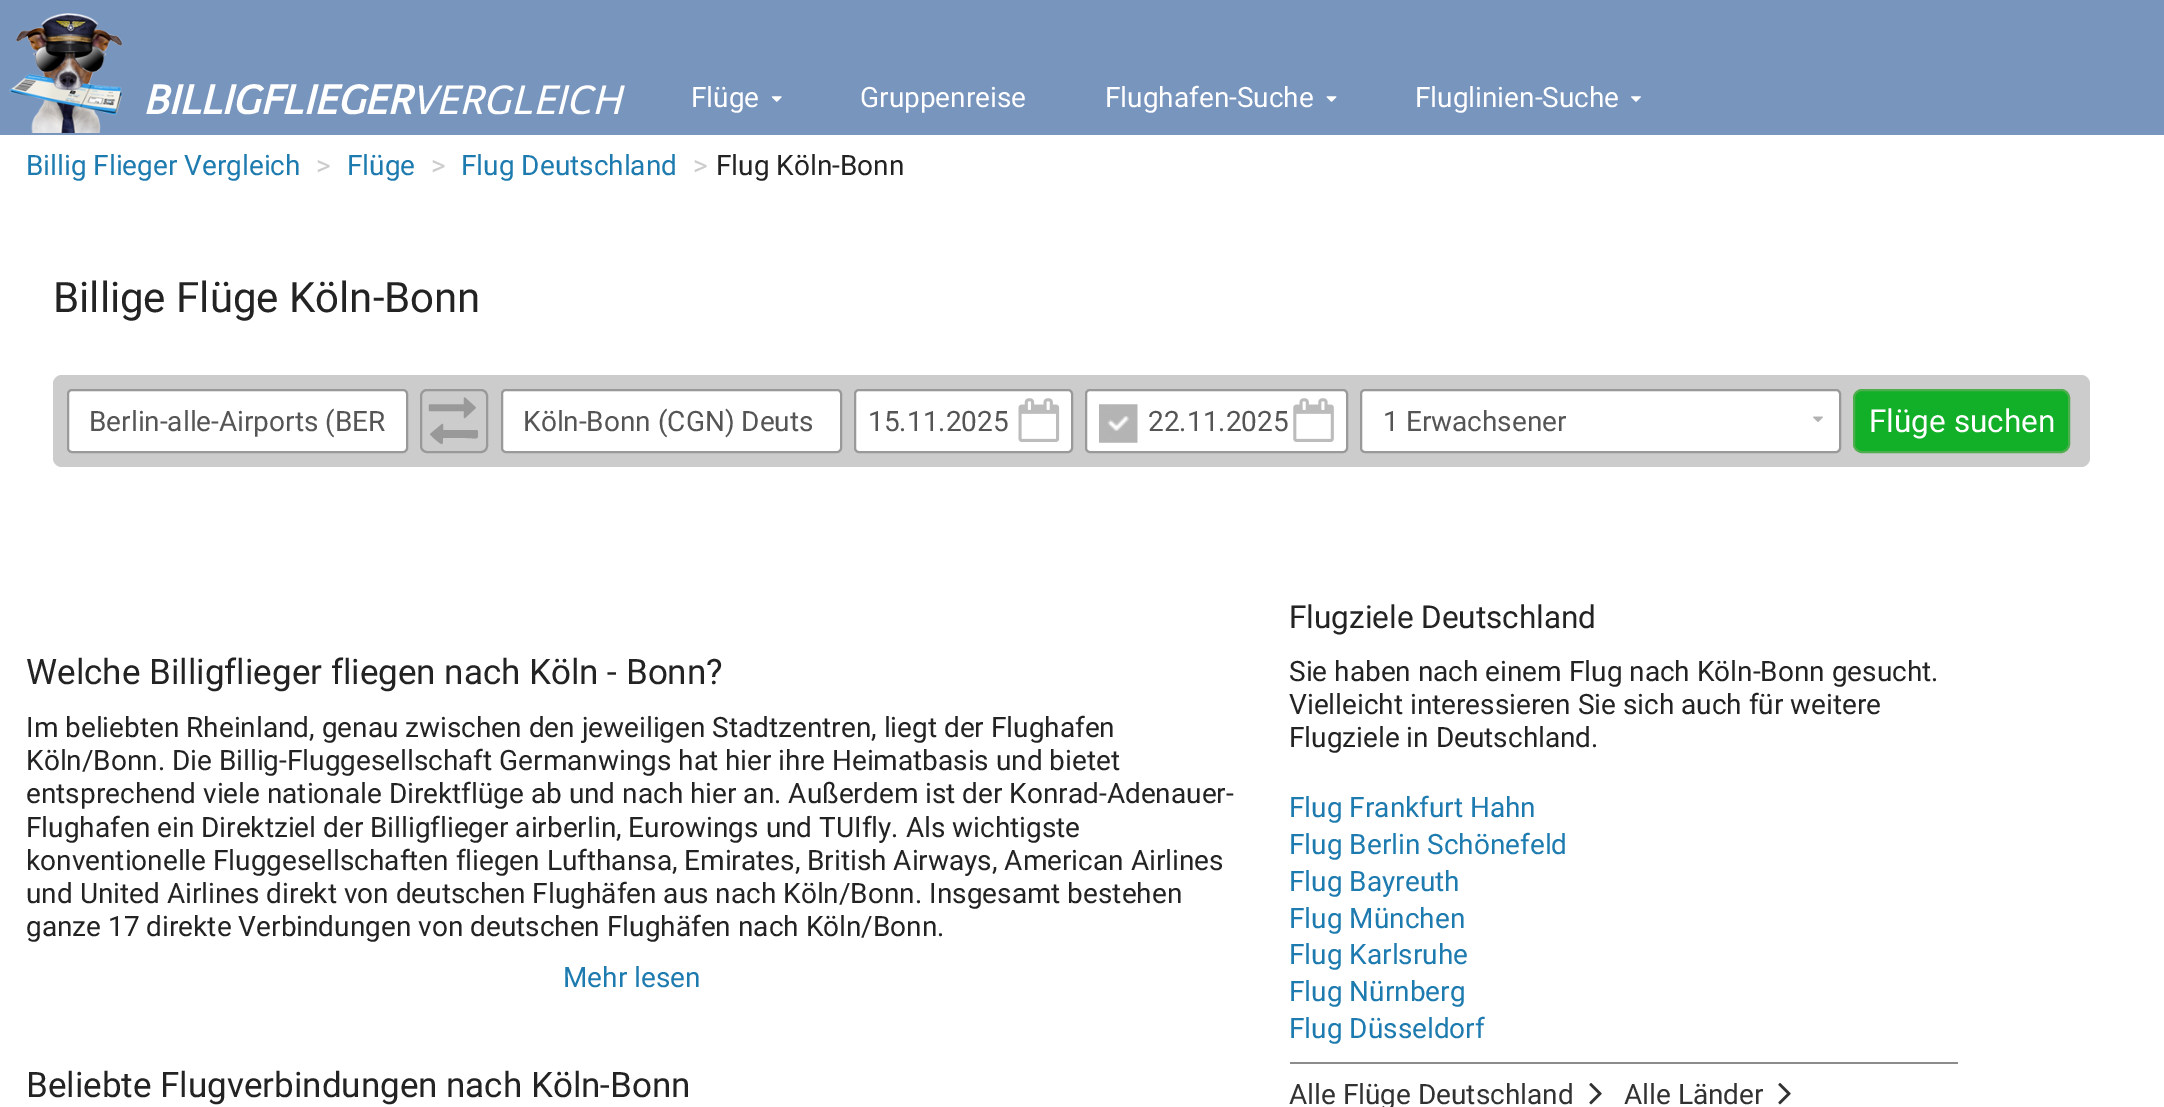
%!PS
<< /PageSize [2164 1107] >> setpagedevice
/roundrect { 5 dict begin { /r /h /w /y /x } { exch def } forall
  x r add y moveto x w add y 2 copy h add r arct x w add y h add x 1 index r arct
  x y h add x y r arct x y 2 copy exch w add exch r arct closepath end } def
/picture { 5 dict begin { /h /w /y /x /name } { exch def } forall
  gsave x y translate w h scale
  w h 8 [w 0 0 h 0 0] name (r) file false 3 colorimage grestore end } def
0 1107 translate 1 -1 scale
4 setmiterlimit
1 setgray
0 0 2164 1107 rectfill
0.471 0.584 0.741 setrgbcolor
0 0 2164 135 rectfill
(img1.rgb) 9 13 114 120 picture
/Telex-BoldItalic [40.25 0 0 -40.25 0 0] selectfont
1 setgray
143 114 moveto (BILLIGFLIEGER) show
/Telex-Italic [40.25 0 0 -40.25 0 0] selectfont
411 114 moveto (VERGLEICH) show
/Roboto-Regular [28 0 0 -28 0 0] selectfont
691 107 moveto (Flüge) show
(img2.rgb) 771 96 11 6 picture
860 107 moveto (Gruppenreise) show
1105 107 moveto (Flughafen-Suche) show
(img3.rgb) 1326 96 11 6 picture
1415 107 moveto (Fluglinien-Suche) show
(img4.rgb) 1631 96 10 6 picture
0.118 0.482 0.686 setrgbcolor
26 175 moveto (Billig Flieger Vergleich) show
0.8 setgray
316 175 moveto (>) show
0.118 0.482 0.686 setrgbcolor
347 175 moveto (Flüge) show
0.8 setgray
431 175 moveto (>) show
0.118 0.482 0.686 setrgbcolor
461 175 moveto (Flug Deutschland) show
0.8 setgray
693 175 moveto (>) show
0.137 setgray
716 175 moveto (Flug Köln-Bonn) show
/Roboto-Regular [42 0 0 -42 0 0] selectfont
53 312 moveto (Billige Flüge Köln-Bonn) show
0.8 setgray
53 375 2037 92 9 roundrect fill
1 setgray
68 390 339 62 4 roundrect gsave fill grestore
0.6 setgray
2 setlinewidth
stroke
/Roboto-Regular [28 0 0 -28 0 0] selectfont
0.333 setgray
89 431 moveto (Berlin-alle-Airports \(BER) show
0.6 setgray
421 390 66 62 6 roundrect stroke
(img5.rgb) 428 397 48 22 picture
newpath 478 431 moveto 478 441 478 438 466 438 curveto 443 438 lineto 443 439 443 444 442 444 curveto 441 445 430 435 430 434 curveto 442 424 lineto 444 423 443 430 443 430 curveto 477 430 lineto closepath fill
1 setgray
502 390 339 62 4 roundrect gsave fill grestore
0.6 setgray
stroke
0.333 setgray
523 431 moveto (Köln-Bonn \(CGN\) Deuts) show
1 setgray
855 390 217 62 4 roundrect gsave fill grestore
0.6 setgray
stroke
0.333 setgray
868 431 moveto (15.11.2025) show
(img6.rgb) 1018 398 42 44 picture
1 setgray
1086 390 261 62 4 roundrect gsave fill grestore
0.6 setgray
stroke
(img7.rgb) 1099 404 39 39 picture
0.333 setgray
1148 431 moveto (22.11.2025) show
(img8.rgb) 1293 398 41 44 picture
1 setgray
1361 390 479 62 4 roundrect gsave fill grestore
0.6 setgray
stroke
0.333 setgray
1383 431 moveto (1 Erwachsener) show
(img9.rgb) 1813 416 10 6 picture
0.071 0.686 0.161 setrgbcolor
1854 390 215 62 8 roundrect gsave fill grestore
0.298 0.682 0.298 setrgbcolor
stroke
/Roboto-Regular [31.5 0 0 -31.5 0 0] selectfont
1 setgray
1869 432 moveto (Flüge suchen) show
/Roboto-Regular [35 0 0 -35 0 0] selectfont
0.137 setgray
26 684 moveto (Welche Billigflieger fliegen nach Köln - Bonn?) show
/Roboto-Regular [28 0 0 -28 0 0] selectfont
26 737 moveto (Im beliebten Rheinland, genau zwischen den jeweiligen Stadtzentren, liegt der Flughafen) show
26 770 moveto (Köln/Bonn. Die Billig-Fluggesellschaft Germanwings hat hier ihre Heimatbasis und bietet) show
26 803 moveto (entsprechend viele nationale Direktflüge ab und nach hier an. Außerdem ist der Konrad-Adenauer-) show
26 837 moveto (Flughafen ein Direktziel der Billigflieger airberlin, Eurowings und TUIfly. Als wichtigste) show
26 870 moveto (konventionelle Fluggesellschaften fliegen Lufthansa, Emirates, British Airways, American Airlines) show
26 903 moveto (und United Airlines direkt von deutschen Flughäfen aus nach Köln/Bonn. Insgesamt bestehen) show
26 936 moveto (ganze 17 direkte Verbindungen von deutschen Flughäfen nach Köln/Bonn.) show
0.118 0.482 0.686 setrgbcolor
563 987 moveto (Mehr lesen) show
/Roboto-Regular [35 0 0 -35 0 0] selectfont
0.137 setgray
26 1097 moveto (Beliebte Flugverbindungen nach Köln-Bonn) show
/Roboto-Regular [31.5 0 0 -31.5 0 0] selectfont
1289 628 moveto (Flugziele Deutschland) show
/Roboto-Regular [28 0 0 -28 0 0] selectfont
1289 681 moveto (Sie haben nach einem Flug nach Köln-Bonn gesucht.) show
1289 714 moveto (Vielleicht interessieren Sie sich auch für weitere) show
1289 747 moveto (Flugziele in Deutschland.) show
0.118 0.482 0.686 setrgbcolor
1289 817 moveto (Flug Frankfurt Hahn) show
1289 854 moveto (Flug Berlin Schönefeld) show
1289 891 moveto (Flug Bayreuth) show
1289 928 moveto (Flug München) show
1289 964 moveto (Flug Karlsruhe) show
1289 1001 moveto (Flug Nürnberg) show
1289 1038 moveto (Flug Düsseldorf) show
0.549 setgray
1290 1062 668 2 rectfill
0.196 setgray
1289 1104 moveto (Alle Flüge Deutschland) show
(img10.rgb) 1589 1083 13 22 picture
1624 1104 moveto (Alle Länder) show
(img10.rgb) 1778 1083 13 22 picture
showpage
